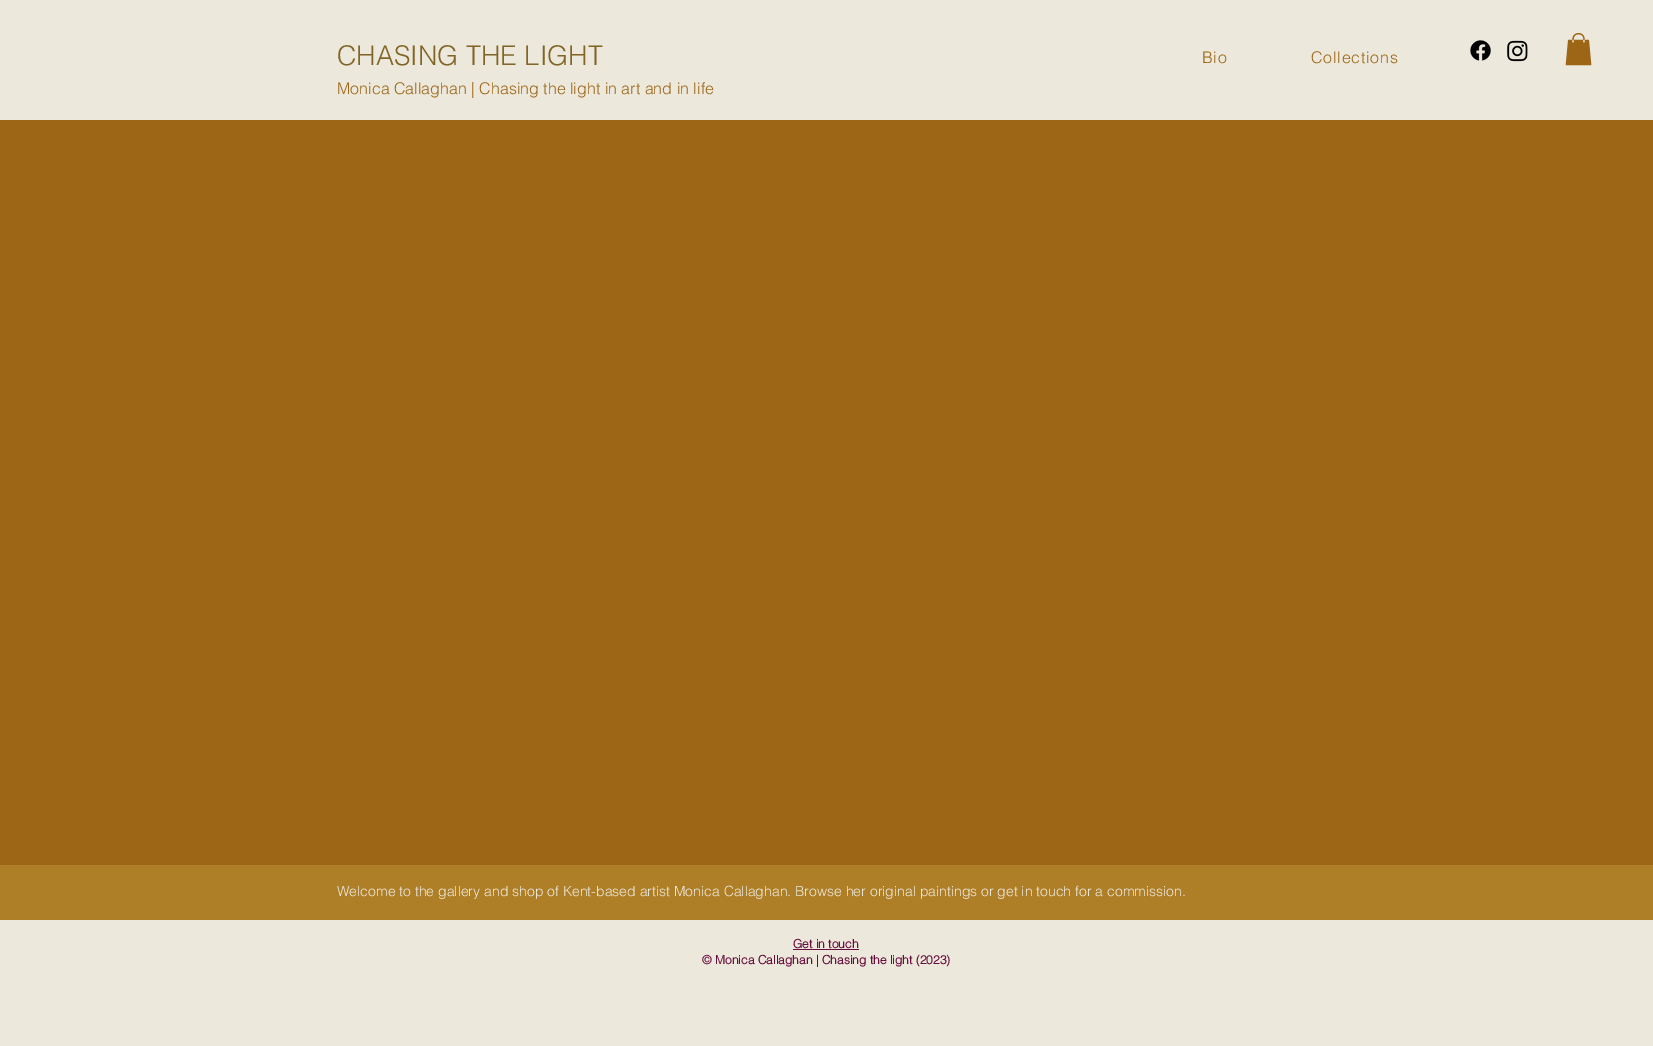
%!PS
<< /PageSize [1653 1046] >> setpagedevice
/picture { 5 dict begin { /h /w /y /x /name } { exch def } forall
  gsave x y translate w h scale
  w h 8 [w 0 0 h 0 0] name (r) file false 3 colorimage grestore end } def
0 1046 translate 1 -1 scale
4 setmiterlimit
0.925 0.91 0.863 setrgbcolor
0 0 1653 1046 rectfill
/helvetica-Light [27 0 0 -27 0 0] selectfont
0.506 0.396 0.145 setrgbcolor
337 65 moveto (CHASING THE LIGHT) show
/helvetica-Light [16 0 0 -16 0 0] selectfont
0.612 0.4 0.086 setrgbcolor
1202 63 moveto 0.75 0 (Bio) ashow
1311 63 moveto 0.75 0 (Collections) ashow
(img1.rgb) 1470 40 21 21 picture
(img2.rgb) 1507 40 21 22 picture
(img3.rgb) 1565 33 27 33 picture
337 94 moveto (Monica Callaghan | Chasing the light in art and in life) show
0 120 1653 745 rectfill
0.686 0.498 0.153 setrgbcolor
0 865 1653 55 rectfill
/helvetica-Light [14 0 0 -14 0 0] selectfont
0.925 0.91 0.863 setrgbcolor
337 896 moveto (Welcome to the gallery and shop of Kent-based artist Monica Callaghan. Browse her original paintings or get in touch for a commission.) show
/helvetica-Bold [12 0 0 -12 0 0] selectfont
0.408 0.055 0.243 setrgbcolor
793 948 moveto (Get in touch) show
793 949 66 1 rectfill
702 964 moveto (© Monica Callaghan | Chasing the light \(2023\)) show
showpage
